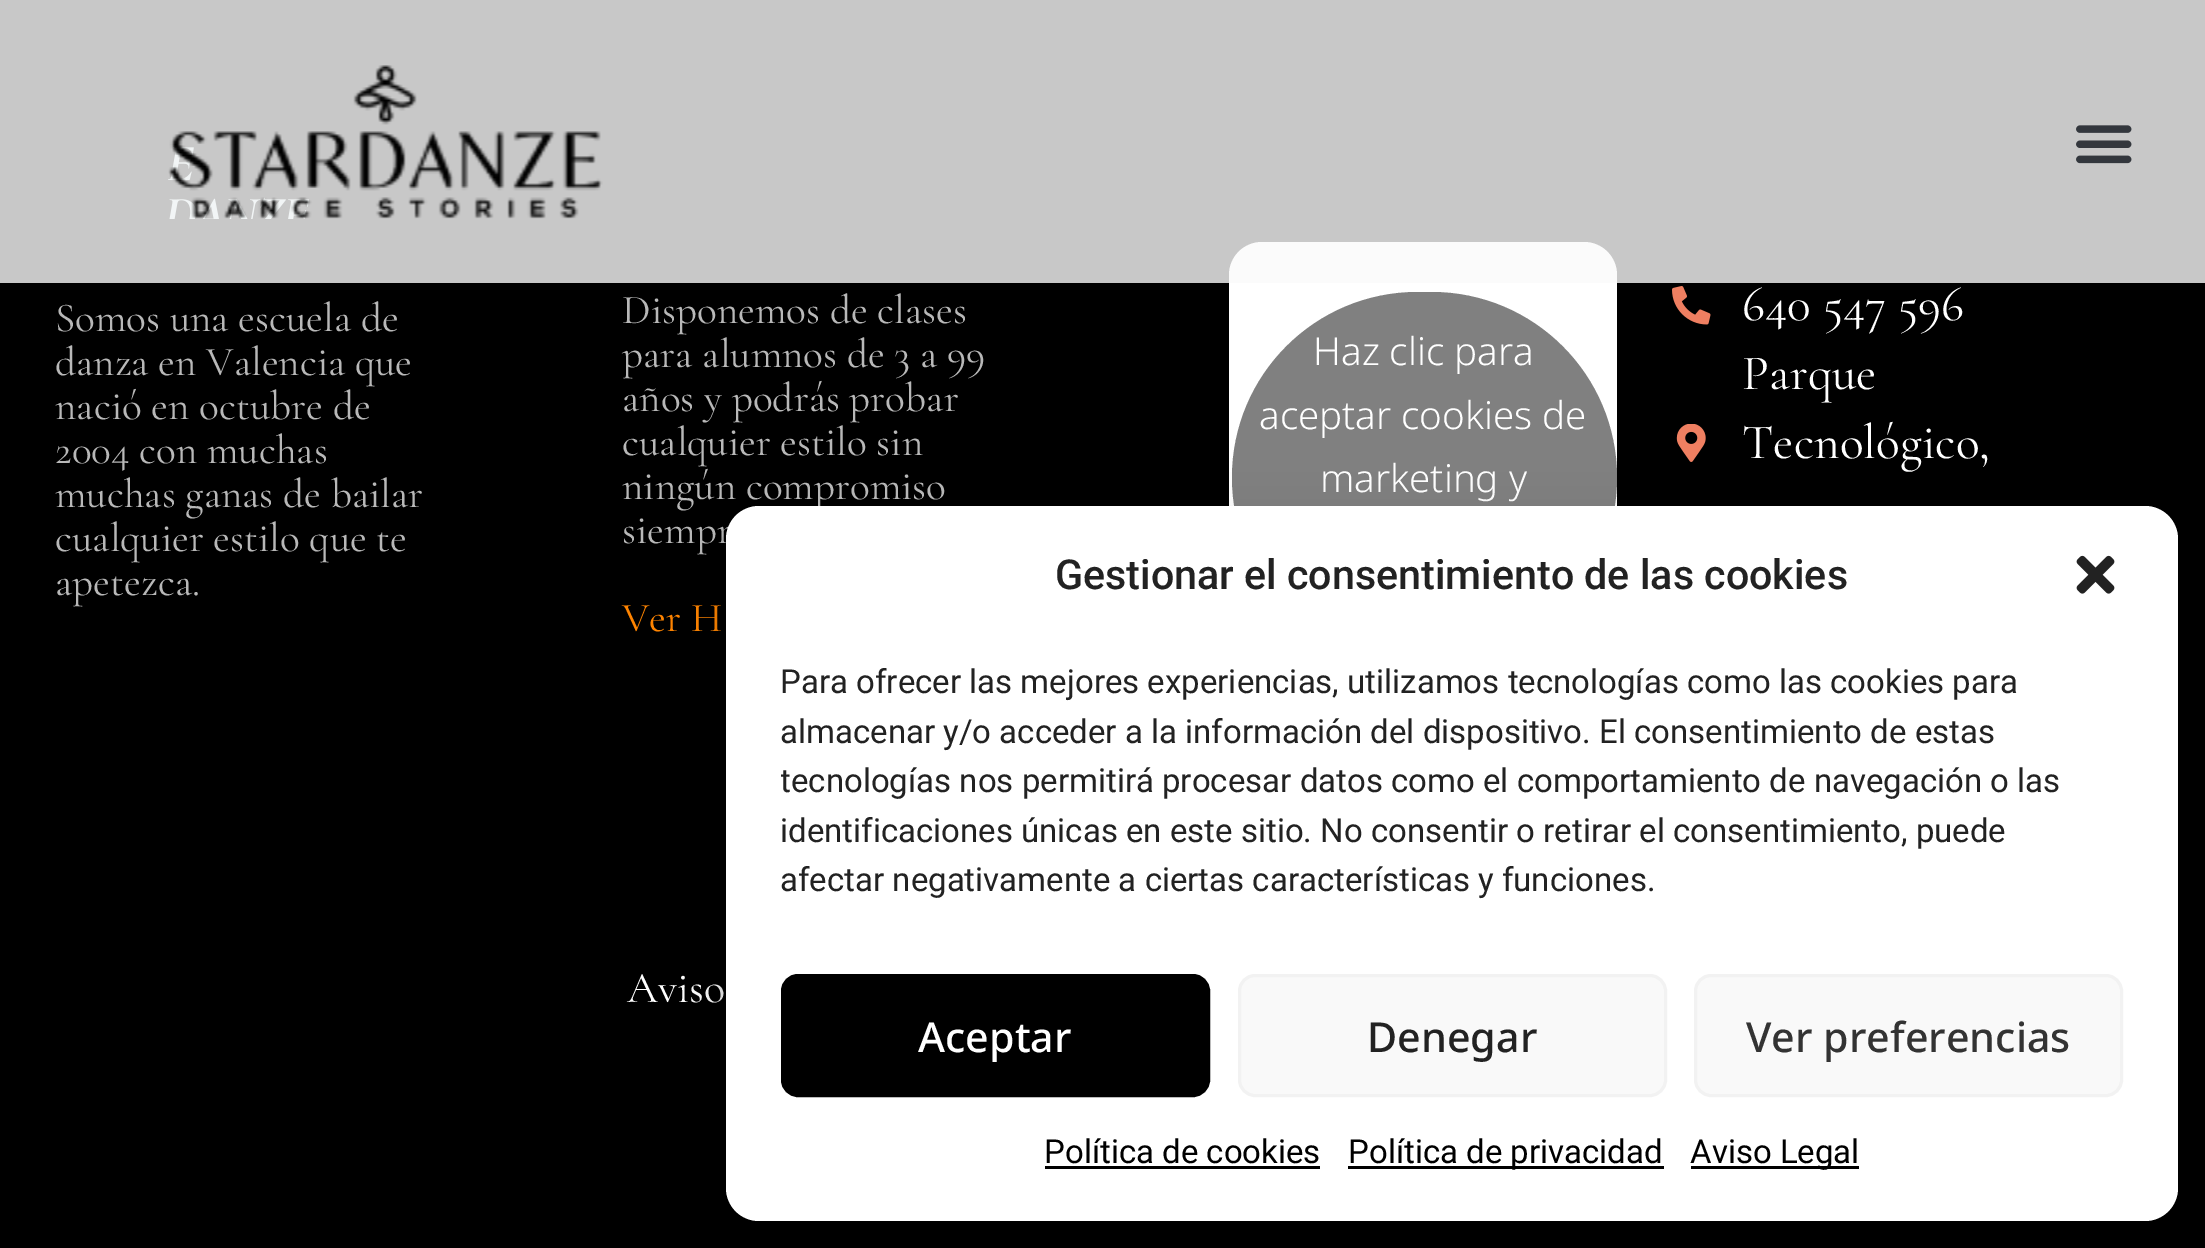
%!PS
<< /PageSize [2205 1248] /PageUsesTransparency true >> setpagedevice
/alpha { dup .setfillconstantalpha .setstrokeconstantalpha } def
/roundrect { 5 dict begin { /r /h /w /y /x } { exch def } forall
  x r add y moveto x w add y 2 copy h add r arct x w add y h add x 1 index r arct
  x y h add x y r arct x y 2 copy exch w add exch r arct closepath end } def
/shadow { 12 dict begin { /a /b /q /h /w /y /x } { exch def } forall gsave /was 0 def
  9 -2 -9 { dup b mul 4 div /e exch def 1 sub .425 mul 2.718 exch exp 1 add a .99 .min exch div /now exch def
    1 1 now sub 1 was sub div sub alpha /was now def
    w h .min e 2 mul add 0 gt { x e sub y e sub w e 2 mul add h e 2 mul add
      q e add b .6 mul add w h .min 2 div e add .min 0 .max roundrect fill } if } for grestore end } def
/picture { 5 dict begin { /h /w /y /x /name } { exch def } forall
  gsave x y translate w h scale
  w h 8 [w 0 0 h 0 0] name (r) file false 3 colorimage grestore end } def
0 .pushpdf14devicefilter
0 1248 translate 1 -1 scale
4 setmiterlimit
0 setgray
0 0 2205 1248 rectfill
1 setgray
1229 242 388 468 33 roundrect fill
0.8 alpha
0.98 setgray
0 0 2205 283 rectfill
1 alpha
(img1.rgb) 168 65 435 154 picture
(img2.rgb) 2076 125 56 39 picture
/CormorantGaramond-Regular [41.25 0 0 -41.25 0 0] selectfont
0.722 setgray
55 331 moveto (Somos una escuela de) show
55 375 moveto (danza en Valencia que) show
55 419 moveto (nació en octubre de) show
55 463 moveto (2004 con muchas) show
55 507 moveto (muchas ganas de bailar) show
55 551 moveto (cualquier estilo que te) show
55 595 moveto (apetezca.) show
622 323 moveto (Disponemos de clases) show
622 367 moveto (para alumnos de 3 a 99) show
622 411 moveto (años y podrás probar) show
622 455 moveto (cualquier estilo sin) show
622 499 moveto (ningún compromiso) show
622 543 moveto (siempr) show
1 0.518 0 setrgbcolor
622 631 moveto (Ver H) show
0.502 setgray
1232 292 385 371 185.5 roundrect fill
/NotoSans-Light [38.5 0 0 -38.5 0 0] selectfont
1 setgray
1313 365 moveto (Haz clic para) show
1259 429 moveto (aceptar cookies de) show
1320 492 moveto (marketing y) show
(img3.rgb) 1672 286 39 39 picture
/CormorantGaramond-Regular [49.5 0 0 -49.5 0 0] selectfont
1742 320 moveto (640 547 596) show
(img4.rgb) 1676 424 30 38 picture
1742 389 moveto (Parque) show
1742 458 moveto (Tecnológico,) show
/CormorantGaramond-Regular [44 0 0 -44 0 0] selectfont
627 1002 moveto (Aviso) show
0 setgray
726 523 1452 715 33 8 0.23 shadow
726 534 1452 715 33 27.5 0.19 shadow
1 setgray
726 506 1452 715 33 roundrect fill
/Roboto-Medium [41.25 0 0 -41.25 0 0] selectfont
0.133 setgray
1055 589 moveto (Gestionar el consentimiento de las cookies) show
(img5.rgb) 2076 555 39 39 picture
/Roboto-Regular [33 0 0 -33 0 0] selectfont
780 693 moveto (Para ofrecer las mejores experiencias, utilizamos tecnologías como las cookies para) show
780 743 moveto (almacenar y/o acceder a la información del dispositivo. El consentimiento de estas) show
gsave
781 657 1342 262 rectclip
780 792 moveto (tecnologías nos permitirá procesar datos como el comportamiento de navegación o las) show
grestore
780 842 moveto (identificaciones únicas en este sitio. No consentir o retirar el consentimiento, puede) show
780 891 moveto (afectar negativamente a ciertas características y funciones.) show
0 setgray
782.5 975.5 426 120 15.5 roundrect gsave fill grestore
3 setlinewidth
stroke
/NotoSans-Medium [41.25 0 0 -41.25 0 0] selectfont
1 setgray
918 1052 moveto (Aceptar) show
0.976 setgray
1239.5 975.5 426 120 15.5 roundrect gsave fill grestore
0.949 setgray
stroke
0.133 setgray
1367 1052 moveto (Denegar) show
0.976 setgray
1695.5 975.5 426 120 15.5 roundrect gsave fill grestore
0.949 setgray
stroke
0.2 setgray
1746 1052 moveto (Ver preferencias) show
/Roboto-Regular [33 0 0 -33 0 0] selectfont
0 setgray
1044 1163 moveto (Política de cookies) show
1045 1166 275 3 rectfill
1348 1166 316 3 rectfill
1348 1163 moveto (Política de privacidad) show
1691 1166 168 3 rectfill
1690 1163 moveto (Aviso Legal) show
.poppdf14devicefilter showpage
